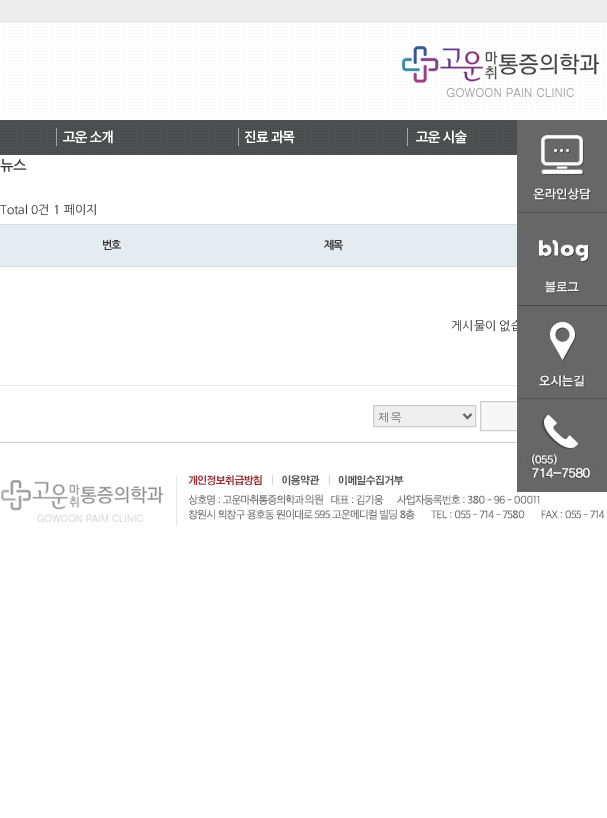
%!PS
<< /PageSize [607 818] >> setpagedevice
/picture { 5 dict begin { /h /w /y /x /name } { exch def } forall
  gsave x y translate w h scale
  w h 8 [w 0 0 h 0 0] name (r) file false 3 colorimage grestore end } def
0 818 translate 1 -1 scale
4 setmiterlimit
1 setgray
0 0 607 818 rectfill
(img1.rgb) 0 0 607 155 picture
(img2.rgb) 402 46 197 51 picture
(img3.rgb) 56 128 57 18 picture
(img4.rgb) 238 128 57 18 picture
(img5.rgb) 407 128 60 18 picture
/NanumGothic-Bold [14 0 0 -14 0 0] selectfont
0.2 setgray
0 170 moveto (뉴스) show
/NanumGothic-Regular [12 0 0 -12 0 0] selectfont
0 214 moveto (Total 0건 1 페이지) show
0.82 0.871 0.886 setrgbcolor
0 224 517 1 rectfill
0 266 517 1 rectfill
0.898 0.925 0.937 setrgbcolor
0 225 517 41 rectfill
/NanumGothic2-Bold [11 0 0 -11 0 0] selectfont
0.2 setgray
102 249 moveto -1 0 (번호) ashow
324 249 moveto -1 0 (제목) ashow
0.914 setgray
0 385 517 1 rectfill
/NanumGothic-Regular [12 0 0 -12 0 0] selectfont
0.2 setgray
451 330 moveto (게시물이 없습) show
0.937 setgray
newpath 373.5 405.5 moveto 475.5 405.5 lineto 475.5 426.5 lineto 373.5 426.5 lineto closepath gsave fill grestore
0.8 setgray
stroke
0.4 setgray
2 setlinewidth
newpath 463.5 414 moveto 467.5 418 lineto 471.5 414 lineto stroke
/Dotum-Regular [12 0 0 -12 0 0] selectfont
378 422 moveto (제목) show
0.969 setgray
481 402 36 28 rectfill
0.8 setgray
1 setlinewidth
480.5 401.5 107 29 rectstroke
(img6.rgb) 517 120 90 93 picture
(img7.rgb) 517 213 90 93 picture
(img8.rgb) 517 306 90 93 picture
(img10.rgb) 1 476 604 50 picture
(img9.rgb) 517 399 90 93 picture
0.812 setgray
0 442 517 1 rectfill
(img11.rgb) 188 475 85 13 picture
(img12.rgb) 282 475 48 11 picture
(img13.rgb) 338 475 66 11 picture
showpage
